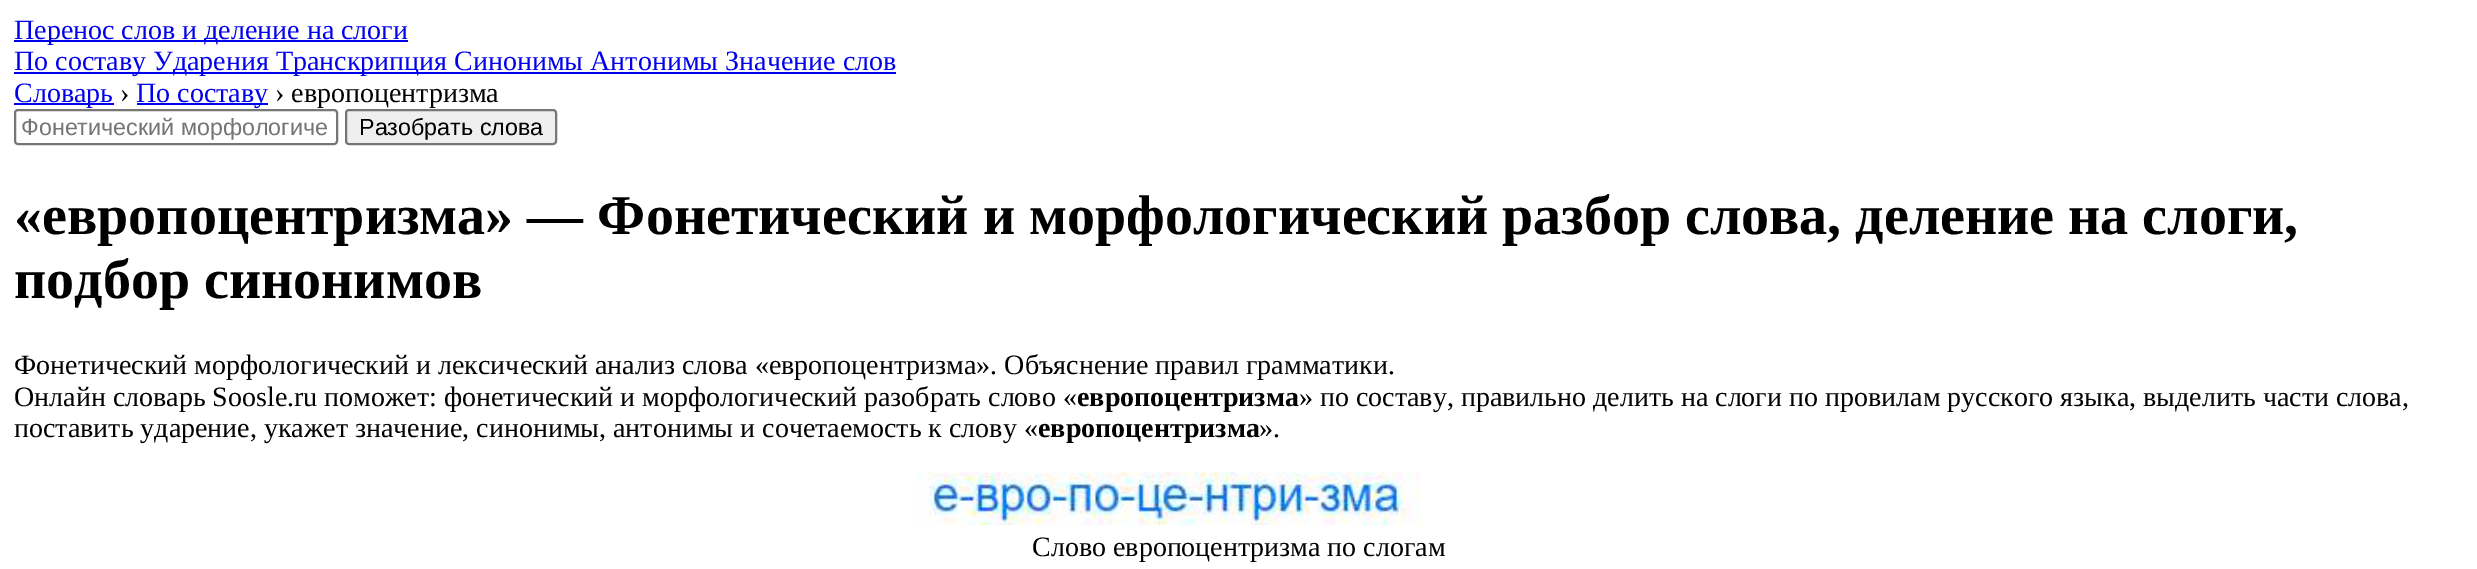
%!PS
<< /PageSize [2477 569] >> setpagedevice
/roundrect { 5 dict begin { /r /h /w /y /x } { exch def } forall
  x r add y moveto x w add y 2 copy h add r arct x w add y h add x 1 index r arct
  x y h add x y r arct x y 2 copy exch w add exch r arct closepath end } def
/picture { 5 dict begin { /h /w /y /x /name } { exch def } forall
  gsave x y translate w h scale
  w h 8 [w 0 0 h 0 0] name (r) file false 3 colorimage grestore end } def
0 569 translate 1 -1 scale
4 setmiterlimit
1 setgray
0 0 2477 569 rectfill
0 0 0.933 setrgbcolor
14 40 394 2 rectfill
/LiberationSerif-Regular [28 0 0 -28 0 0] selectfont
14 39 moveto (Перенос слов и деление на слоги) show
14 72 131 2 rectfill
14 70 moveto (По составу) show
145 72 301 2 rectfill
153 70 moveto (Ударения Транскрипция Синонимы Антонимы Значение слов) show
446 72 450 2 rectfill
14 103 100 2 rectfill
14 102 moveto (Словарь) show
0 setgray
120 102 moveto (›) show
0 0 0.933 setrgbcolor
137 103 131 2 rectfill
136 102 moveto (По составу) show
0 setgray
275 102 moveto (› европоцентризма) show
0.463 setgray
2 setlinewidth
15 110 322 34 3 roundrect stroke
/LiberationSans-Regular [23.3 0 0 -23.3 0 0] selectfont
0.459 setgray
21 135 moveto (Фонетический морфологиче) show
0.937 setgray
346 110 210 34 3 roundrect gsave fill grestore
0.463 setgray
stroke
0 setgray
359 135 moveto (Разобрать слова) show
/LiberationSerif-Bold [56 0 0 -56 0 0] selectfont
14 234 moveto («европоцентризма» — Фонетический и морфологический разбор слова, деление на слоги,) show
14 298 moveto (подбор синонимов) show
/LiberationSerif-Regular [28 0 0 -28 0 0] selectfont
14 374 moveto (Фонетический морфологический и лексический анализ слова «европоцентризма». Объяснение правил грамматики.) show
14 406 moveto (Онлайн словарь Soosle.ru поможет: фонетический и морфологический разобрать слово «) show
/LiberationSerif-Bold [28 0 0 -28 0 0] selectfont
1077 406 moveto (европоцентризма) show
/LiberationSerif-Regular [28 0 0 -28 0 0] selectfont
1299 406 moveto (» по составу, правильно делить на слоги по провилам русского языка, выделить части слова,) show
14 437 moveto (поставить ударение, укажет значение, синонимы, антонимы и сочетаемость к слову «) show
/LiberationSerif-Bold [28 0 0 -28 0 0] selectfont
1038 437 moveto (европоцентризма) show
/LiberationSerif-Regular [28 0 0 -28 0 0] selectfont
1259 437 moveto (».) show
(img1.rgb) 915 472 506 53 picture
1032 556 moveto (Слово европоцентризма по слогам) show
showpage
